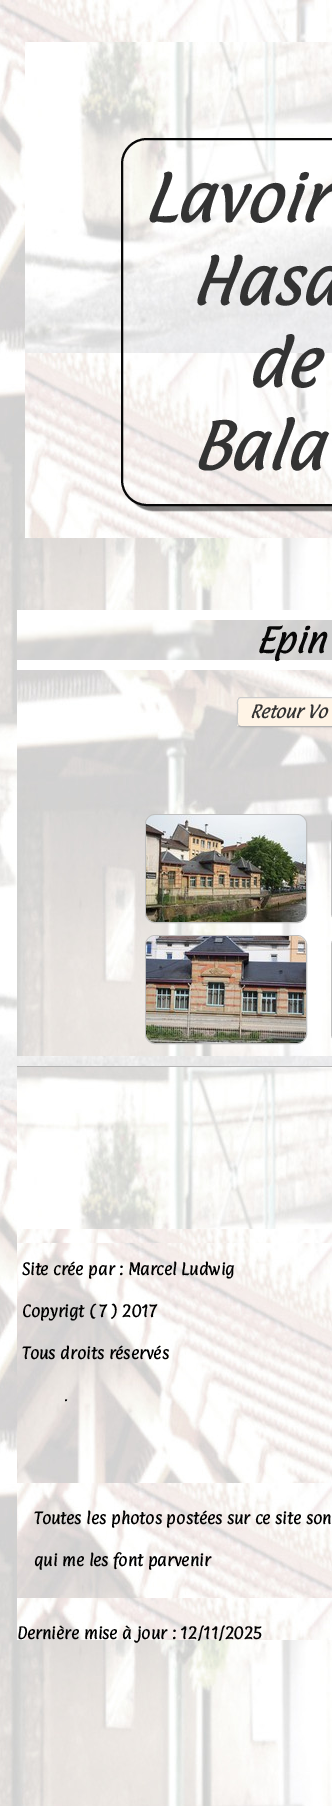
%!PS
<< /PageSize [332 1806] /PageUsesTransparency true >> setpagedevice
/alpha { dup .setfillconstantalpha .setstrokeconstantalpha } def
/roundrect { 5 dict begin { /r /h /w /y /x } { exch def } forall
  x r add y moveto x w add y 2 copy h add r arct x w add y h add x 1 index r arct
  x y h add x y r arct x y 2 copy exch w add exch r arct closepath end } def
/shadow { 12 dict begin { /a /b /q /h /w /y /x } { exch def } forall gsave /was 0 def
  9 -2 -9 { dup b mul 4 div /e exch def 1 sub .425 mul 2.718 exch exp 1 add a .99 .min exch div /now exch def
    1 1 now sub 1 was sub div sub alpha /was now def
    w h .min e 2 mul add 0 gt { x e sub y e sub w e 2 mul add h e 2 mul add
      q e add b .6 mul add w h .min 2 div e add .min 0 .max roundrect fill } if } for grestore end } def
/picture { 5 dict begin { /h /w /y /x /name } { exch def } forall
  gsave x y translate w h scale
  w h 8 [w 0 0 h 0 0] name (r) file false 3 colorimage grestore end } def
0 .pushpdf14devicefilter
0 1806 translate 1 -1 scale
4 setmiterlimit
1 setgray
0 0 332 1806 rectfill
(img1.rgb) 0 0 332 1806 picture
(img2.rgb) 17 1067 315 162 picture
(img3.rgb) 17 17 315 593 picture
(img4.rgb) 25 42 307 496 picture
gsave
newpath 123 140 moveto 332 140 lineto 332 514 lineto 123 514 lineto closepath 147 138 moveto 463 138 lineto 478.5 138 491 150.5 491 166 curveto 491 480 lineto 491 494.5 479.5 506 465 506 curveto 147 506 lineto 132.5 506 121 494.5 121 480 curveto 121 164 lineto 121 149.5 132.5 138 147 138 curveto closepath eoclip newpath
0 setgray
126 143 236 368 28 0.5 0.5 shadow
grestore
0.031 setgray
2 setlinewidth
newpath 147 139 moveto 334 139 lineto 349 139 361 151 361 166 curveto 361 480 lineto 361 494 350 505 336 505 curveto 147 505 lineto 133 505 122 494 122 480 curveto 122 164 lineto 122 150 133 139 147 139 curveto closepath stroke
/Paprika-BoldItalic [55 0 0 -55 0 0] selectfont
0.2 setgray
144 222 moveto (Lavoir) show
191 305 moveto (Hasa) show
247 387 moveto (de) show
192 470 moveto (Bala) show
1 setgray
17 610 315 60 rectfill
0.702 setgray
17 1066 315 1 rectfill
(img5.rgb) 17 620 315 40 picture
/Paprika-BoldItalic [30 0 0 -30 0 0] selectfont
0.031 setgray
256 653 moveto (Epin) show
(img6.rgb) 17 1056 315 10 picture
(img7.rgb) 17 814 315 242 picture
(img8.rgb) 17 670 315 144 picture
0 setgray
237 698 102 30 4 1 0.05 shadow
gsave
237 697 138 30 4 roundrect clip newpath
1 0.957 0.902 setrgbcolor
237 698 95 28 rectfill
grestore
1 0.965 0.922 setrgbcolor
newpath 241 699 moveto 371 699 lineto 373 699 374 700 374 702 curveto 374 700 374 698 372 698 curveto 240 698 lineto 238 698 238 700 238 702 curveto 238 700 239 699 241 699 curveto closepath fill
0.702 setgray
1 setlinewidth
newpath 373.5 725.5 moveto 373 726 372 726.5 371 726.5 curveto 241 726.5 lineto 240 726.5 239 726 238.5 725.5 curveto stroke
0.8 setgray
newpath 238.5 725.5 moveto 236.5 723.5 237.5 715 237.5 712 curveto 237.5 704.5 lineto 237.5 702 237 697.5 241 697.5 curveto 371 697.5 lineto 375 697.5 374.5 702 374.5 704.5 curveto 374.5 712 lineto 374.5 715 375.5 723.5 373.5 725.5 curveto stroke
/Paprika-BoldItalic [15 0 0 -15 0 0] selectfont
0.2 setgray
250 718 moveto (Retour Vo) show
0.749 setgray
145.5 814.5 161 108 9.5 roundrect stroke
331.5 814.5 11 108 9.5 roundrect stroke
(img9.rgb) 146 815 160 107 picture
145.5 935.5 161 108 9.5 roundrect stroke
331.5 935.5 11 108 9.5 roundrect stroke
(img10.rgb) 146 936 160 107 picture
(img11.rgb) 17 1229 315 14 picture
(img12.rgb) 17 1243 315 240 picture
/Paprika-Bold [14 0 0 -14 0 0] selectfont
0 setgray
22 1275 moveto (Site crée par : Marcel Ludwig) show
22 1317 moveto (Copyrigt \( 7 \) 2017) show
22 1359 moveto (Tous droits réservés) show
/Paprika-Regular [14 0 0 -14 0 0] selectfont
64 1401 moveto (.) show
(img13.rgb) 17 1483 315 115 picture
/Paprika-Bold [14 0 0 -14 0 0] selectfont
34 1524 moveto (Toutes les photos postées sur ce site son) show
34 1566 moveto (qui me les font parvenir) show
(img14.rgb) 17 1598 315 42 picture
17 1639 moveto (Dernière mise à jour : 12/11/2025) show
.poppdf14devicefilter showpage
